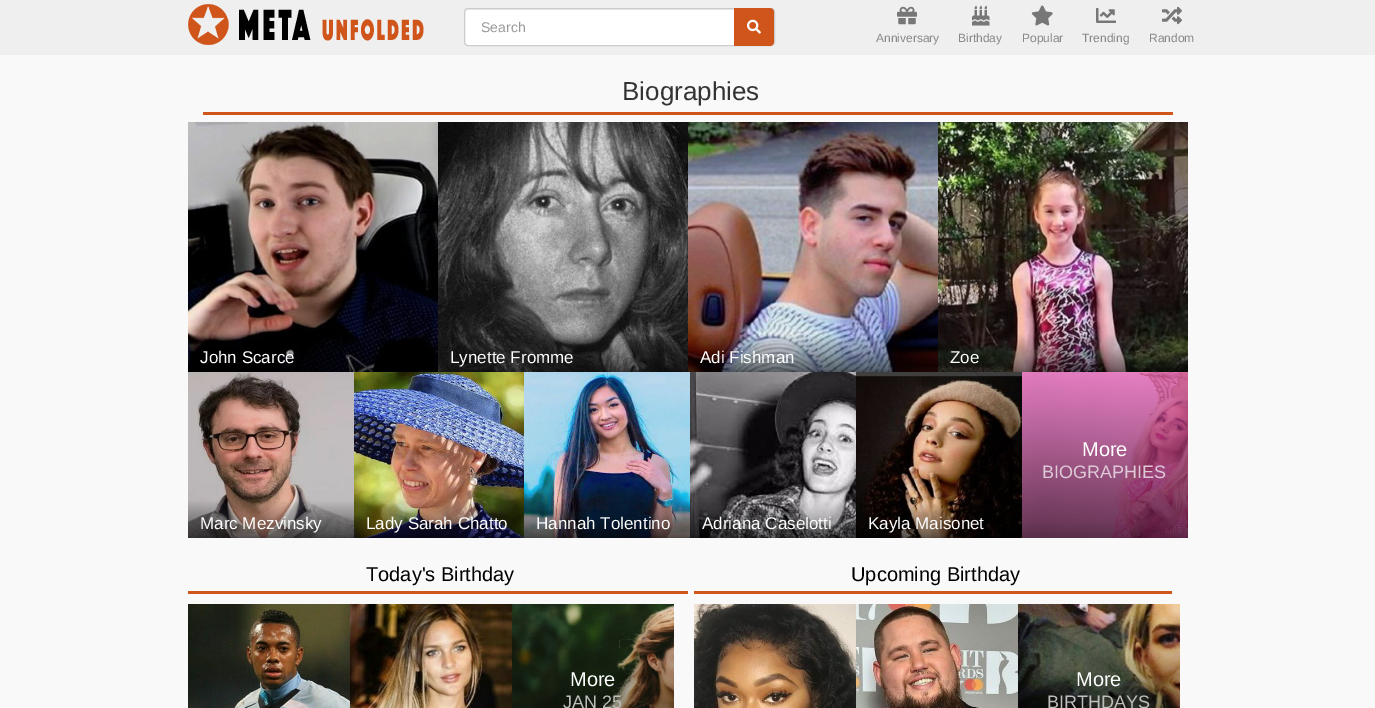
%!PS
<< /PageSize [1375 708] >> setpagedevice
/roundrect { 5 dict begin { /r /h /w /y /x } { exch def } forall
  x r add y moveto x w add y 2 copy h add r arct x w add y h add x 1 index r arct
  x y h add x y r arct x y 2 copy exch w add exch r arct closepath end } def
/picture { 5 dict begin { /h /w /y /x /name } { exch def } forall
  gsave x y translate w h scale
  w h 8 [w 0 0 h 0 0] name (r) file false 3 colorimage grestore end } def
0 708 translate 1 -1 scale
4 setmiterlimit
0.976 setgray
0 0 1375 708 rectfill
0.937 setgray
0 0 1375 55 rectfill
(img1.rgb) 188 4 236 41 picture
1 setgray
464 8 311 38 4 roundrect fill
0.925 setgray
newpath 468 10 moveto 771 10 lineto 773 10 774 11 774 13 curveto 773 10 lineto 772 9 lineto 468 9 lineto 466 9 465 11 465 13 curveto 465 11 466 10 468 10 curveto closepath fill
0.8 setgray
464.5 8.5 310 37 3.5 roundrect stroke
/LiberationSans-Regular [14 0 0 -14 0 0] selectfont
0.6 setgray
481 32 moveto (Search) show
0.816 0.333 0.106 setrgbcolor
newpath 734 8 moveto 770 8 lineto 772 8 774 10 774 12 curveto 774 42 lineto 774 44 772 46 770 46 curveto 734 46 lineto closepath fill
(img2.rgb) 747 19 14 15 picture
(img3.rgb) 897 6 20 19 picture
/LiberationSans-Regular [12 0 0 -12 0 0] selectfont
0.533 setgray
876 42 moveto (Anniversary) show
(img4.rgb) 972 5 18 21 picture
958 42 moveto (Birthday) show
(img5.rgb) 1031 5 22 21 picture
1022 42 moveto (Popular) show
(img6.rgb) 1096 8 20 15 picture
1082 42 moveto (Trending) show
(img7.rgb) 1162 6 20 19 picture
1149 42 moveto (Random) show
0.816 0.333 0.106 setrgbcolor
203 112 970 3 rectfill
/LiberationSans-Regular [26 0 0 -26 0 0] selectfont
0.2 setgray
622 100 moveto (Biographies) show
(img8.rgb) 188 122 250 250 picture
/LiberationSans-Regular [17 0 0 -17 0 0] selectfont
1 setgray
200 363 moveto (John Scarce) show
(img9.rgb) 438 122 250 250 picture
450 363 moveto (Lynette Fromme) show
(img10.rgb) 688 122 250 250 picture
700 363 moveto (Adi Fishman) show
(img11.rgb) 938 122 250 250 picture
950 363 moveto (Zoe) show
(img12.rgb) 1022 372 166 166 picture
/LiberationSans-Regular [20 0 0 -20 0 0] selectfont
1082 456 moveto (More) show
/LiberationSans-Regular [18 0 0 -18 0 0] selectfont
0.878 0.788 0.843 setrgbcolor
1042 478 moveto (BIOGRAPHIES) show
(img13.rgb) 188 372 166 166 picture
/LiberationSans-Regular [17 0 0 -17 0 0] selectfont
1 setgray
200 529 moveto (Marc Mezvinsky) show
(img14.rgb) 354 372 170 166 picture
366 529 moveto (Lady Sarah Chatto) show
(img15.rgb) 524 372 166 166 picture
536 529 moveto (Hannah Tolentino) show
(img16.rgb) 690 372 166 166 picture
702 529 moveto (Adriana Caselotti) show
(img17.rgb) 856 372 166 166 picture
868 529 moveto (Kayla Maisonet) show
0.816 0.333 0.106 setrgbcolor
188 591 500 3 rectfill
/LiberationSans-Regular [20 0 0 -20 0 0] selectfont
0 setgray
366 581 moveto (Today's Birthday) show
(img18.rgb) 188 604 162 104 picture
(img19.rgb) 350 604 162 104 picture
(img20.rgb) 512 604 162 104 picture
1 setgray
570 686 moveto (More) show
/LiberationSans-Regular [18 0 0 -18 0 0] selectfont
0.745 0.749 0.733 setrgbcolor
563 708 moveto (JAN 25) show
0.816 0.333 0.106 setrgbcolor
694 591 478 3 rectfill
/LiberationSans-Regular [20 0 0 -20 0 0] selectfont
0 setgray
851 581 moveto (Upcoming Birthday) show
(img21.rgb) 694 604 162 104 picture
(img22.rgb) 856 604 162 104 picture
(img23.rgb) 1018 604 162 104 picture
1 setgray
1076 686 moveto (More) show
/LiberationSans-Regular [18 0 0 -18 0 0] selectfont
0.745 0.749 0.733 setrgbcolor
1047 708 moveto (BIRTHDAYS) show
showpage
